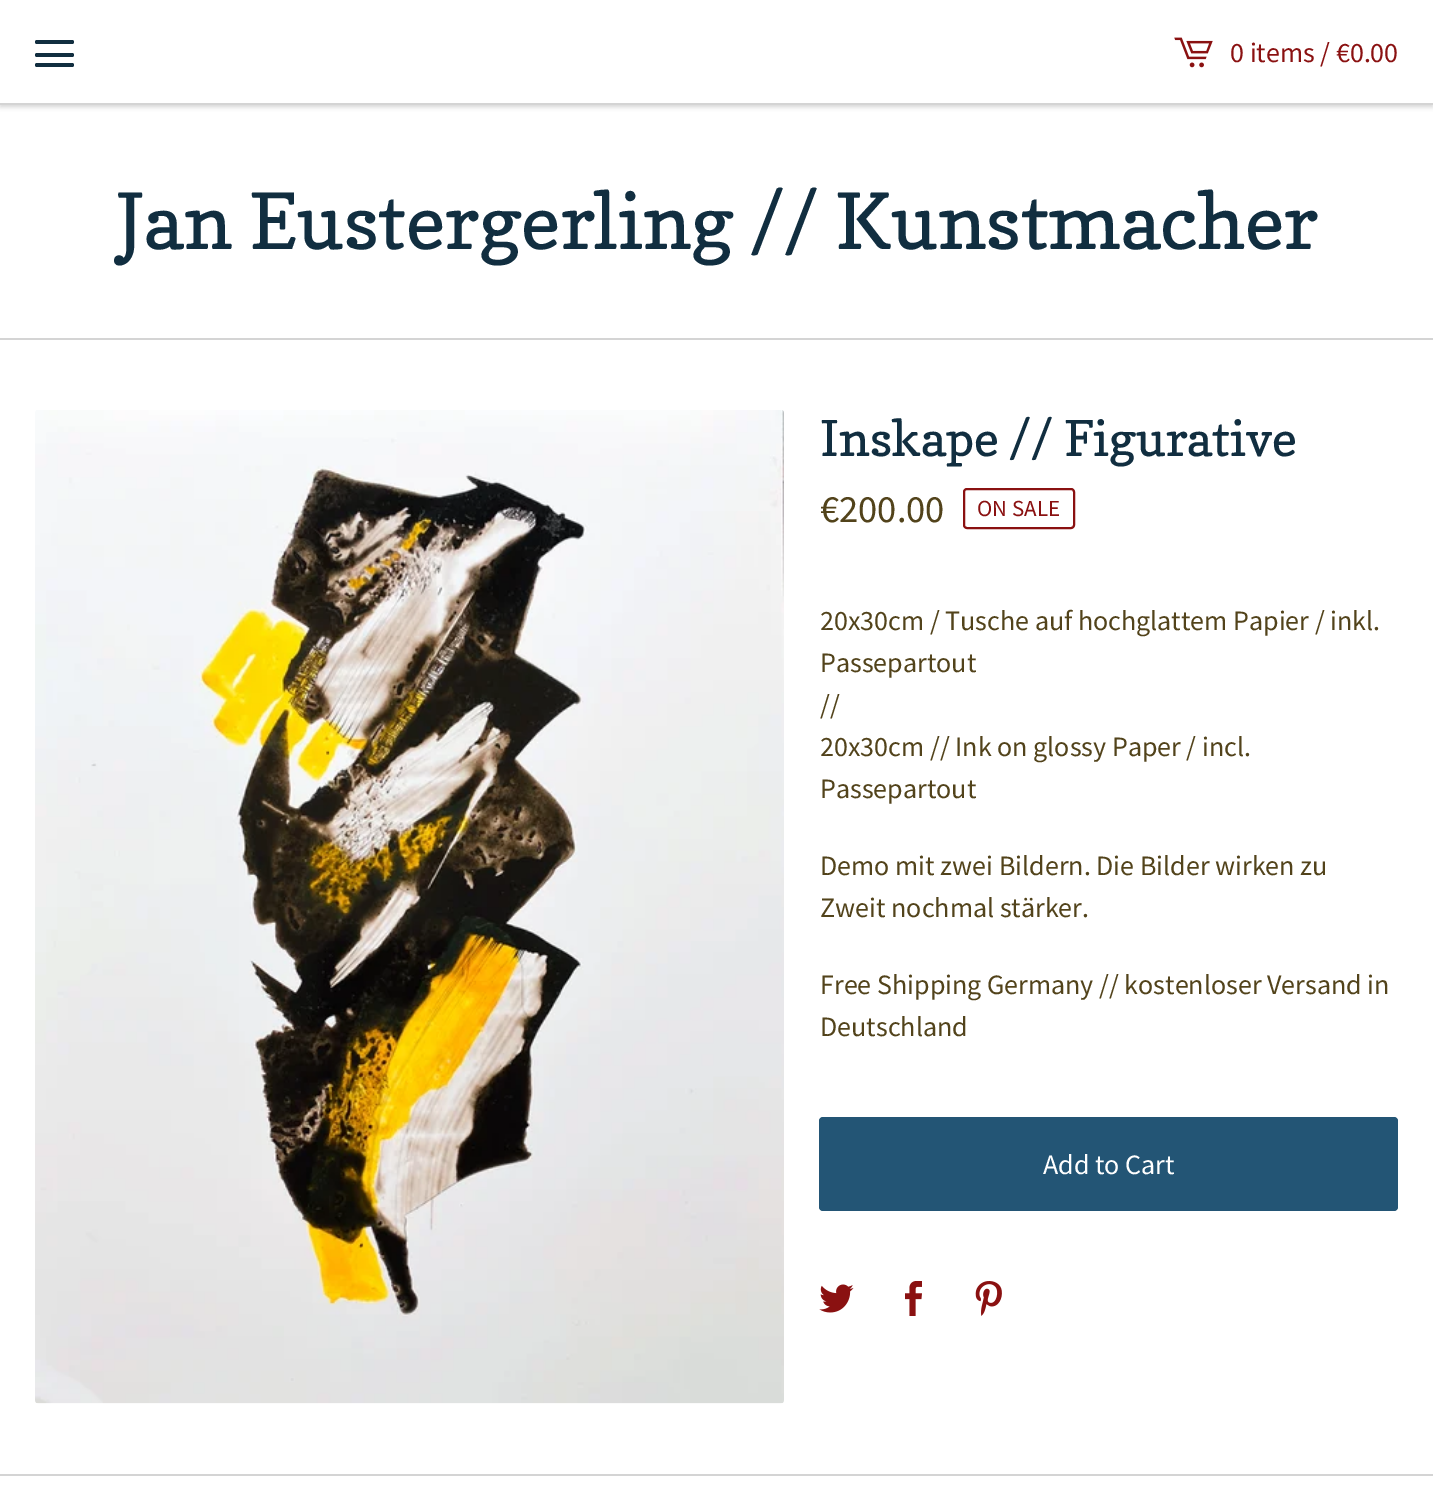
%!PS
<< /PageSize [1433 1496] /PageUsesTransparency true >> setpagedevice
/alpha { dup .setfillconstantalpha .setstrokeconstantalpha } def
/roundrect { 5 dict begin { /r /h /w /y /x } { exch def } forall
  x r add y moveto x w add y 2 copy h add r arct x w add y h add x 1 index r arct
  x y h add x y r arct x y 2 copy exch w add exch r arct closepath end } def
/shadow { 12 dict begin { /a /b /q /h /w /y /x } { exch def } forall gsave /was 0 def
  9 -2 -9 { dup b mul 4 div /e exch def 1 sub .425 mul 2.718 exch exp 1 add a .99 .min exch div /now exch def
    1 1 now sub 1 was sub div sub alpha /was now def
    w h .min e 2 mul add 0 gt { x e sub y e sub w e 2 mul add h e 2 mul add
      q e add b .6 mul add w h .min 2 div e add .min 0 .max roundrect fill } if } for grestore end } def
/picture { 5 dict begin { /h /w /y /x /name } { exch def } forall
  gsave x y translate w h scale
  w h 8 [w 0 0 h 0 0] name (r) file false 3 colorimage grestore end } def
0 .pushpdf14devicefilter
0 1496 translate 1 -1 scale
4 setmiterlimit
1 setgray
0 0 1433 1496 rectfill
gsave
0 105 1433 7 rectclip
0.831 setgray
0 2 1433 105 0 2.5 1 shadow
grestore
0.831 setgray
0 103 1433 2 rectfill
0.067 0.18 0.251 setrgbcolor
35 40 39 4 2 roundrect fill
35 53 39 4 2 roundrect fill
35 63 39 4 2 roundrect fill
(img1.rgb) 1174 37 39 31 picture
/SourceSansPro-Regular [28 0 0 -28 0 0] selectfont
0.541 0.067 0.067 setrgbcolor
1230 62 moveto (0 items / €0.00) show
0.831 setgray
0 338 1433 2 rectfill
/Copse-Regular [77 0 0 -77 0 0] selectfont
0.067 0.18 0.251 setrgbcolor
116 249 moveto (Jan Eustergerling // Kunstmacher) show
(img2.rgb) 35 410 749 994 picture
/Copse-Regular [49 0 0 -49 0 0] selectfont
820 456 moveto (Inskape // Figurative) show
/SourceSansPro-Regular [38.5 0 0 -38.5 0 0] selectfont
0.322 0.263 0.106 setrgbcolor
820 522 moveto (€200.00) show
0.541 0.067 0.067 setrgbcolor
2 setlinewidth
964 489 110 39 3 roundrect stroke
/SourceSansPro-Regular [23 0 0 -23 0 0] selectfont
977 516 moveto (ON SALE) show
/SourceSansPro-Regular [28 0 0 -28 0 0] selectfont
0.322 0.263 0.106 setrgbcolor
820 630 moveto (20x30cm / Tusche auf hochglattem Papier / inkl.) show
820 672 moveto (Passepartout) show
820 714 moveto (//) show
820 756 moveto (20x30cm // Ink on glossy Paper / incl.) show
820 798 moveto (Passepartout) show
820 875 moveto (Demo mit zwei Bildern. Die Bilder wirken zu) show
820 917 moveto (Zweit nochmal stärker.) show
820 994 moveto (Free Shipping Germany // kostenloser Versand in) show
820 1036 moveto (Deutschland) show
0.137 0.333 0.459 setrgbcolor
819 1117 579 94 4 roundrect fill
1 setgray
1043 1174 moveto (Add to Cart) show
(img3.rgb) 819 1284 35 29 picture
(img4.rgb) 905 1281 17 35 picture
(img5.rgb) 975 1281 27 35 picture
0.831 setgray
0 1474 1433 2 rectfill
.poppdf14devicefilter showpage
